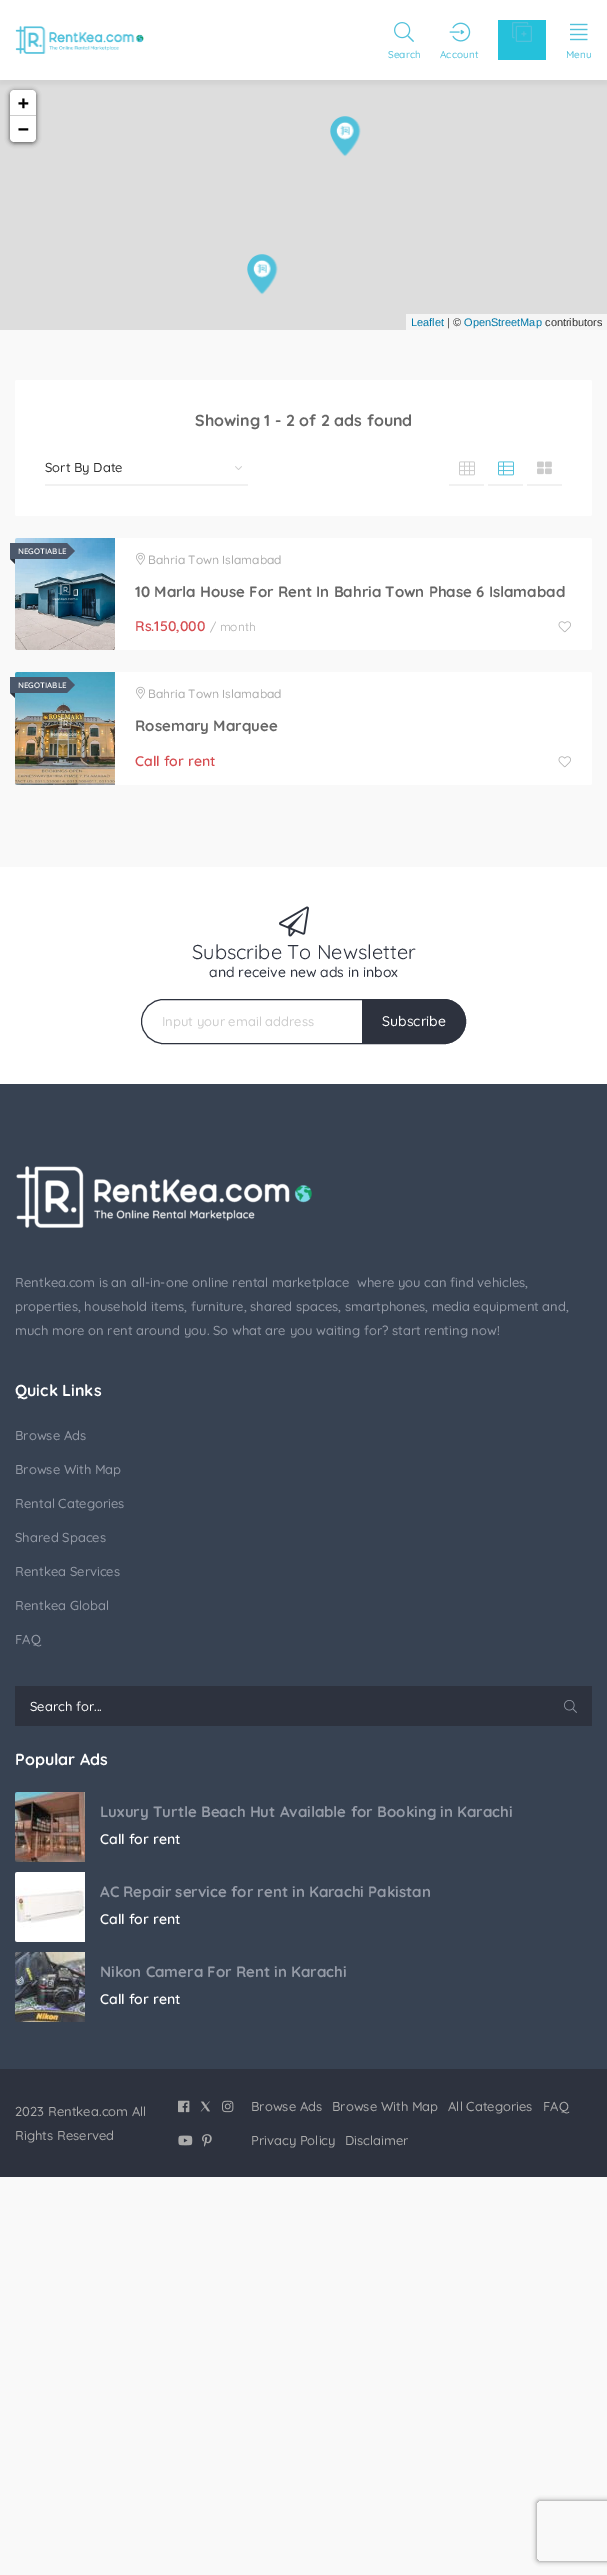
%!PS
<< /PageSize [607 2575] /PageUsesTransparency true >> setpagedevice
/alpha { dup .setfillconstantalpha .setstrokeconstantalpha } def
/roundrect { 5 dict begin { /r /h /w /y /x } { exch def } forall
  x r add y moveto x w add y 2 copy h add r arct x w add y h add x 1 index r arct
  x y h add x y r arct x y 2 copy exch w add exch r arct closepath end } def
/shadow { 12 dict begin { /a /b /q /h /w /y /x } { exch def } forall gsave /was 0 def
  9 -2 -9 { dup b mul 4 div /e exch def 1 sub .425 mul 2.718 exch exp 1 add a .99 .min exch div /now exch def
    1 1 now sub 1 was sub div sub alpha /was now def
    w h .min e 2 mul add 0 gt { x e sub y e sub w e 2 mul add h e 2 mul add
      q e add b .6 mul add w h .min 2 div e add .min 0 .max roundrect fill } if } for grestore end } def
/picture { 5 dict begin { /h /w /y /x /name } { exch def } forall
  gsave x y translate w h scale
  w h 8 [w 0 0 h 0 0] name (r) file false 3 colorimage grestore end } def
0 .pushpdf14devicefilter
0 2575 translate 1 -1 scale
4 setmiterlimit
0.976 setgray
0 0 607 2575 rectfill
0.867 setgray
0 80 607 250 rectfill
0 setgray
10 91 26 52 4 2.5 0.65 shadow
1 setgray
newpath 14 90 moveto 32 90 lineto 34 90 36 92 36 94 curveto 36 116 lineto 10 116 lineto 10 94 lineto 10 92 12 90 14 90 curveto closepath fill
0.09 setgray
0 4 607 80 0 2 0.06 shadow
1 setgray
0 0 607 80 rectfill
(img1.rgb) 15 26 129 28 picture
(img2.rgb) 394 22 20 20 picture
/Quicksand-Medium [10 0 0 -10 0 0] selectfont
0.322 0.757 0.859 setrgbcolor
388 58 moveto (Search) show
(img3.rgb) 449 22 22 20 picture
440 58 moveto (Account) show
0.145 0.757 0.859 setrgbcolor
498 20 48 40 rectfill
(img4.rgb) 512 22 20 20 picture
(img5.rgb) 570 23 18 18 picture
0.322 0.757 0.859 setrgbcolor
566 58 moveto (Menu) show
0.8 setgray
10 115 26 1 rectfill
/DejaVuSansMono-Bold [18 0 0 -18 0 0] selectfont
0 setgray
18 109 moveto (+) show
1 setgray
newpath 10 116 moveto 36 116 lineto 36 138 lineto 36 140 34 142 32 142 curveto 14 142 lineto 12 142 10 140 10 138 curveto closepath fill
0 setgray
18 135 moveto (−) show
0.961 setgray
406 314 201 16 rectfill
/LiberationSans-Regular [11 0 0 -11 0 0] selectfont
0 0.471 0.659 setrgbcolor
411 326 moveto (Leaflet) show
0.2 setgray
447 326 moveto (| ©) show
0 0.471 0.659 setrgbcolor
464 326 moveto (OpenStreetMap) show
0.2 setgray
545 326 moveto (contributors) show
(img6.rgb) 330 116 31 41 picture
(img6.rgb) 247 254 31 41 picture
1 setgray
15 380 577 136 2 roundrect fill
/Quicksand-Bold [16 0 0 -16 0 0] selectfont
0.4 setgray
195 426 moveto (Showing 1 - 2 of 2 ads found) show
0.945 setgray
45 484 203 2 rectfill
/Quicksand-Medium [13 0 0 -13 0 0] selectfont
0.176 setgray
45 472 moveto (Sort By Date) show
(img7.rgb) 235 466 7 4 picture
0.945 setgray
449 484 35 2 rectfill
(img8.rgb) 459 461 16 15 picture
488 484 35 2 rectfill
(img9.rgb) 498 461 16 15 picture
527 484 35 2 rectfill
(img10.rgb) 537 461 15 14 picture
1 setgray
15 538 577 112 2 roundrect fill
(img11.rgb) 15 538 100 112 picture
0.294 0.345 0.42 setrgbcolor
10 543 57 16 rectfill
/Quicksand-SemiBold [8 0 0 -8 0 0] selectfont
1 setgray
18 554 moveto (NEGOTIABLE) show
0.294 0.345 0.42 setrgbcolor
newpath 67 559 moveto 67 543 lineto 75 551 lineto closepath fill
0.173 0.2 0.239 setrgbcolor
newpath 10 559 moveto 15 559 lineto 15 564 lineto closepath fill
(img12.rgb) 136 552 9 13 picture
/Quicksand-Medium [12 0 0 -12 0 0] selectfont
0.667 setgray
148 564 moveto (Bahria Town Islamabad) show
/Quicksand-Bold [15 0 0 -15 0 0] selectfont
0.4 setgray
135 597 moveto (10 Marla House For Rent In Bahria Town Phase 6 Islamabad) show
/Quicksand-SemiBold [14 0 0 -14 0 0] selectfont
0.835 0.294 0.31 setrgbcolor
135 631 moveto (Rs.150,000) show
/Quicksand-Regular [12 0 0 -12 0 0] selectfont
0.667 setgray
210 631 moveto (/ month) show
(img13.rgb) 558 621 13 12 picture
1 setgray
15 672 577 113 2 roundrect fill
(img14.rgb) 15 672 100 113 picture
0.294 0.345 0.42 setrgbcolor
10 677 57 16 rectfill
/Quicksand-SemiBold [8 0 0 -8 0 0] selectfont
1 setgray
18 688 moveto (NEGOTIABLE) show
0.294 0.345 0.42 setrgbcolor
newpath 67 693 moveto 67 677 lineto 75 685 lineto closepath fill
0.173 0.2 0.239 setrgbcolor
newpath 10 693 moveto 15 693 lineto 15 698 lineto closepath fill
(img12.rgb) 136 686 9 13 picture
/Quicksand-Medium [12 0 0 -12 0 0] selectfont
0.667 setgray
148 698 moveto (Bahria Town Islamabad) show
/Quicksand-Bold [15 0 0 -15 0 0] selectfont
0.4 setgray
135 731 moveto (Rosemary Marquee) show
/Quicksand-SemiBold [14 0 0 -14 0 0] selectfont
0.835 0.294 0.31 setrgbcolor
135 766 moveto (Call for rent) show
(img13.rgb) 558 756 13 12 picture
1 setgray
0 867 607 217 rectfill
(img15.rgb) 279 906 30 31 picture
/Quicksand-Regular [20 0 0 -20 0 0] selectfont
0.176 0.196 0.243 setrgbcolor
192 959 moveto (Subscribe To Newsletter) show
/Quicksand-Medium [14 0 0 -14 0 0] selectfont
209 977 moveto (and receive new ads in inbox) show
141.5 999.5 324 44 22 roundrect stroke
/Quicksand-Medium [13 0 0 -13 0 0] selectfont
0.8 setgray
162 1026 moveto (Input your email address) show
0.176 0.196 0.243 setrgbcolor
newpath 362 999 moveto 443.5 999 lineto 456 999 466 1009 466 1021.5 curveto 466 1034 456 1044 443.5 1044 curveto 362 1044 lineto closepath fill
/Quicksand-Medium [14 0 0 -14 0 0] selectfont
1 setgray
382 1026 moveto (Subscribe) show
0.216 0.259 0.322 setrgbcolor
0 1084 607 985 rectfill
(img16.rgb) 16 1166 296 62 picture
/Quicksand-Medium [13 0 0 -13 0 0] selectfont
0.584 0.608 0.655 setrgbcolor
15 1287 moveto (Rentkea.com is an all-in-one online rental marketplace  where you can find vehicles,) show
15 1311 moveto (properties, household items, furniture, shared spaces, smartphones, media equipment and,) show
15 1335 moveto (much more on rent around you. So what are you waiting for? start renting now!) show
/Quicksand-Bold [16 0 0 -16 0 0] selectfont
1 setgray
15 1396 moveto (Quick Links) show
/Quicksand-Medium [13 0 0 -13 0 0] selectfont
0.584 0.608 0.655 setrgbcolor
15 1440 moveto (Browse Ads) show
15 1474 moveto (Browse With Map) show
15 1508 moveto (Rental Categories) show
15 1542 moveto (Shared Spaces) show
15 1576 moveto (Rentkea Services) show
15 1610 moveto (Rentkea Global) show
15 1644 moveto (FAQ) show
0.176 0.196 0.243 setrgbcolor
15 1686 577 40 rectfill
1 setgray
30 1711 moveto (Search for...) show
(img17.rgb) 564 1700 13 13 picture
/Quicksand-Bold [16 0 0 -16 0 0] selectfont
15 1765 moveto (Popular Ads) show
(img18.rgb) 15 1792 70 70 picture
/Quicksand-Bold [15 0 0 -15 0 0] selectfont
0.584 0.608 0.655 setrgbcolor
100 1817 moveto (Luxury Turtle Beach Hut Available for Booking in Karachi) show
/Quicksand-SemiBold [14 0 0 -14 0 0] selectfont
1 setgray
100 1844 moveto (Call for rent) show
(img19.rgb) 15 1872 70 70 picture
/Quicksand-Bold [15 0 0 -15 0 0] selectfont
0.584 0.608 0.655 setrgbcolor
100 1897 moveto (AC Repair service for rent in Karachi Pakistan) show
/Quicksand-SemiBold [14 0 0 -14 0 0] selectfont
1 setgray
100 1924 moveto (Call for rent) show
(img20.rgb) 15 1952 70 70 picture
/Quicksand-Bold [15 0 0 -15 0 0] selectfont
0.584 0.608 0.655 setrgbcolor
100 1977 moveto (Nikon Camera For Rent in Karachi) show
/Quicksand-SemiBold [14 0 0 -14 0 0] selectfont
1 setgray
100 2004 moveto (Call for rent) show
0.176 0.196 0.243 setrgbcolor
0 2069 607 108 rectfill
/Quicksand-Medium [13 0 0 -13 0 0] selectfont
0.667 setgray
15 2116 moveto (2023 Rentkea.com All) show
15 2140 moveto (Rights Reserved) show
(img21.rgb) 178 2100 12 13 picture
(img22.rgb) 200 2101 10 11 picture
(img23.rgb) 222 2100 12 13 picture
(img24.rgb) 178 2135 15 11 picture
(img25.rgb) 202 2134 10 13 picture
251 2111 moveto (Browse Ads) show
332 2111 moveto (Browse With Map) show
448 2111 moveto (All Categories) show
543 2111 moveto (FAQ) show
251 2145 moveto (Privacy Policy) show
345 2145 moveto (Disclaimer) show
gsave
newpath 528 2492 moveto 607 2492 lineto 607 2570 lineto 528 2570 lineto closepath 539 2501 moveto 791 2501 lineto 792 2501 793 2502 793 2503 curveto 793 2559 lineto 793 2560 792 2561 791 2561 curveto 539 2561 lineto 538 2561 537 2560 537 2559 curveto 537 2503 lineto 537 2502 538 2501 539 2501 curveto closepath eoclip newpath
0.502 setgray
537 2501 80 60 2 2.5 1 shadow
grestore
.poppdf14devicefilter showpage
